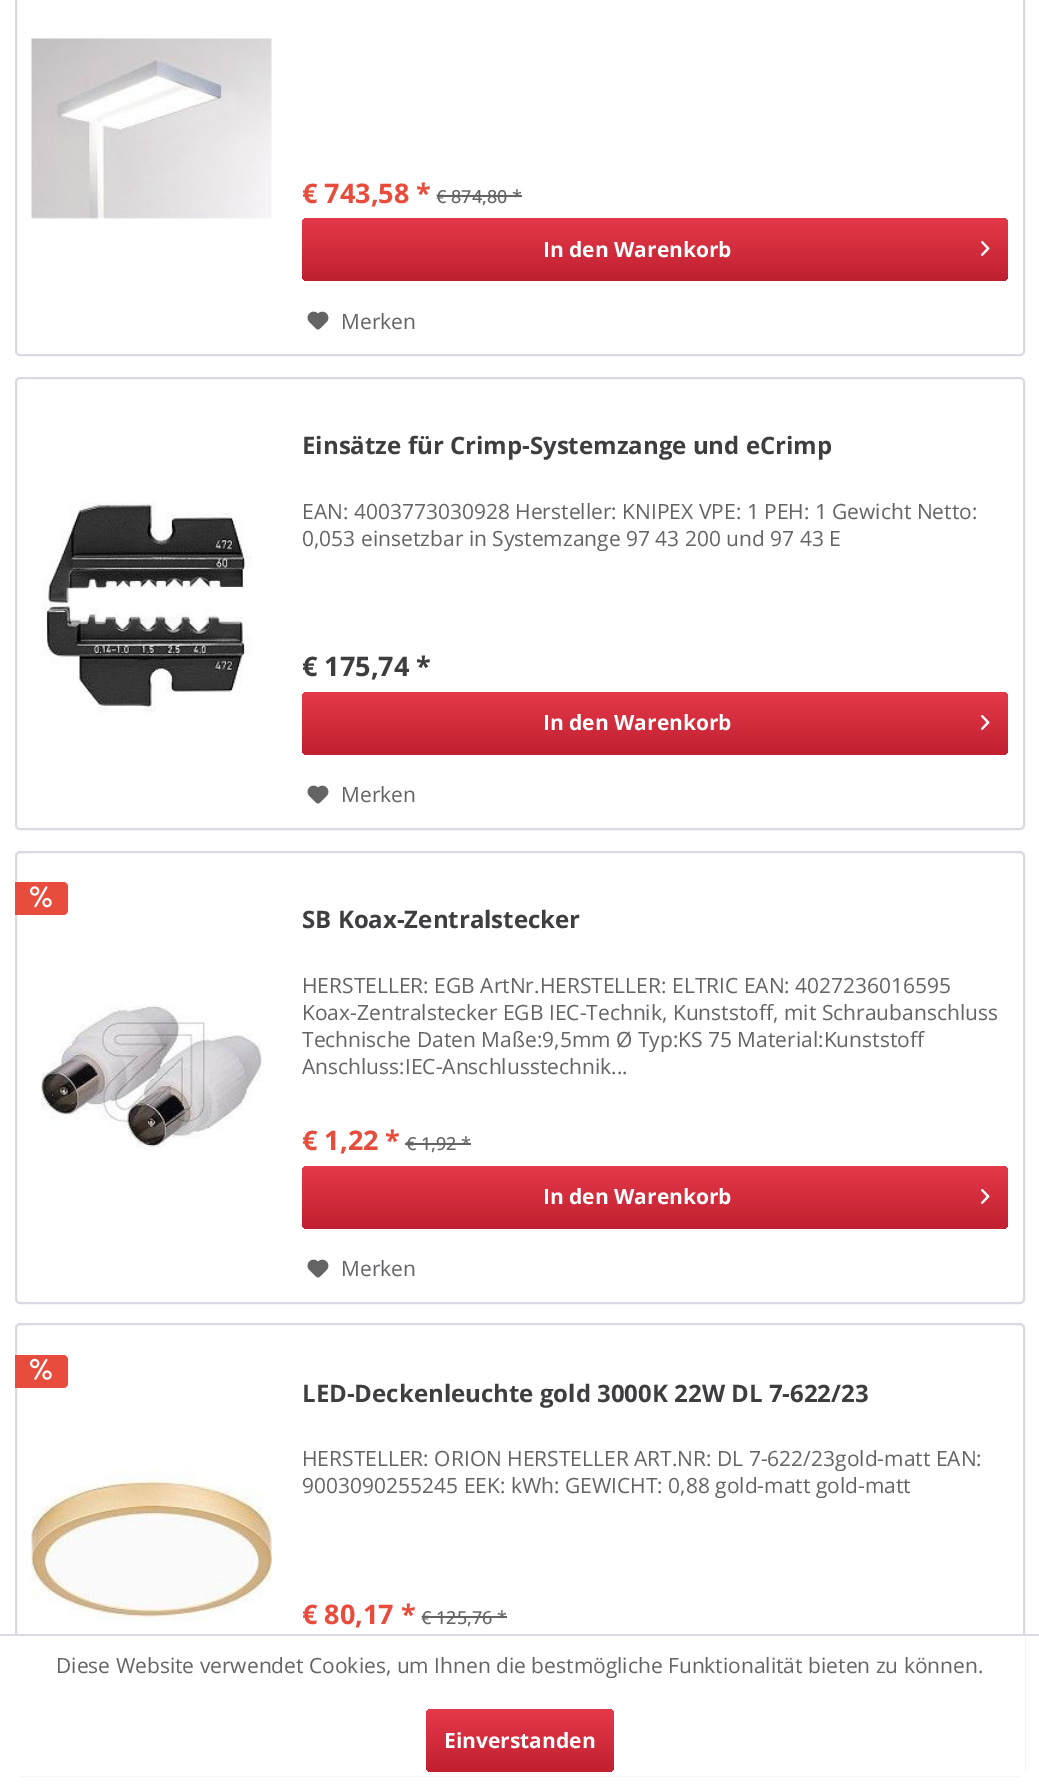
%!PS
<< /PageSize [1039 1786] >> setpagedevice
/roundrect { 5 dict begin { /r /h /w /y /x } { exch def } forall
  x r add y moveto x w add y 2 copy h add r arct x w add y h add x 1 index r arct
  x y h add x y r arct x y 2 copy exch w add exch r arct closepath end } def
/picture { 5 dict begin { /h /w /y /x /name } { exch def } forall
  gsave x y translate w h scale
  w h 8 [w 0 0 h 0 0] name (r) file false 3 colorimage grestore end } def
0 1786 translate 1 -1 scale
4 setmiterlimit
1 setgray
0 0 1039 1786 rectfill
0.855 0.855 0.898 setrgbcolor
2 setlinewidth
16 -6 1008 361 4 roundrect stroke
(img1.rgb) 31 38 241 181 picture
/OpenSans-Bold [27 0 0 -27 0 0] selectfont
0.906 0.298 0.235 setrgbcolor
302 203 moveto (€ 743,58 *) show
/OpenSans-Medium [18 0 0 -18 0 0] selectfont
0.388 0.392 0.4 setrgbcolor
436 203 moveto (€ 874,80 *) show
437 195 85 2 rectfill
gsave 302 218 706 63 5 roundrect clip newpath
<< /ShadingType 2 /ColorSpace /DeviceRGB /Coords [655 217 655 281] /Extend [true true] /Function << /FunctionType 2 /Domain [0 1] /C0 [0.898 0.224 0.29] /C1 [0.753 0.125 0.188] /N 1 >> >> shfill grestore
/OpenSans-Bold [21 0 0 -21 0 0] selectfont
1 setgray
543 257 moveto (In den Warenkorb) show
(img2.rgb) 981 241 9 15 picture
(img3.rgb) 307 311 22 19 picture
/OpenSans-Regular [21 0 0 -21 0 0] selectfont
0.388 0.392 0.4 setrgbcolor
341 329 moveto (Merken) show
0.855 0.855 0.898 setrgbcolor
16 378 1008 451 4 roundrect stroke
/OpenSans-Bold [24 0 0 -24 0 0] selectfont
0.239 0.243 0.247 setrgbcolor
302 454 moveto (Einsätze für Crimp-Systemzange und eCrimp) show
(img4.rgb) 41 502 211 211 picture
/OpenSans-Regular [21 0 0 -21 0 0] selectfont
0.388 0.392 0.4 setrgbcolor
302 519 moveto (EAN: 4003773030928 Hersteller: KNIPEX VPE: 1 PEH: 1 Gewicht Netto:) show
302 546 moveto (0,053 einsetzbar in Systemzange 97 43 200 und 97 43 E) show
/OpenSans-Bold [27 0 0 -27 0 0] selectfont
0.239 0.243 0.247 setrgbcolor
302 676 moveto (€ 175,74 *) show
gsave 302 692 706 63 5 roundrect clip newpath
<< /ShadingType 2 /ColorSpace /DeviceRGB /Coords [655 692 655 755] /Extend [true true] /Function << /FunctionType 2 /Domain [0 1] /C0 [0.898 0.224 0.29] /C1 [0.753 0.125 0.188] /N 1 >> >> shfill grestore
/OpenSans-Bold [21 0 0 -21 0 0] selectfont
1 setgray
543 730 moveto (In den Warenkorb) show
(img5.rgb) 981 715 9 15 picture
(img3.rgb) 307 785 22 19 picture
/OpenSans-Regular [21 0 0 -21 0 0] selectfont
0.388 0.392 0.4 setrgbcolor
341 802 moveto (Merken) show
0.855 0.855 0.898 setrgbcolor
16 852 1008 451 4 roundrect stroke
0.906 0.298 0.235 setrgbcolor
newpath 15 882 moveto 63 882 lineto 66 882 68 884 68 887 curveto 68 910 lineto 68 913 66 915 63 915 curveto 15 915 lineto closepath fill
(img6.rgb) 30 886 22 22 picture
/OpenSans-Bold [24 0 0 -24 0 0] selectfont
0.239 0.243 0.247 setrgbcolor
302 928 moveto (SB Koax-Zentralstecker) show
(img7.rgb) 41 1005 221 144 picture
/OpenSans-Regular [21 0 0 -21 0 0] selectfont
0.388 0.392 0.4 setrgbcolor
302 993 moveto (HERSTELLER: EGB ArtNr.HERSTELLER: ELTRIC EAN: 4027236016595) show
302 1020 moveto (Koax-Zentralstecker EGB IEC-Technik, Kunststoff, mit Schraubanschluss) show
302 1047 moveto (Technische Daten Maße:9,5mm Ø Typ:KS 75 Material:Kunststoff) show
302 1074 moveto (Anschluss:IEC-Anschlusstechnik...) show
/OpenSans-Bold [27 0 0 -27 0 0] selectfont
0.906 0.298 0.235 setrgbcolor
302 1150 moveto (€ 1,22 *) show
/OpenSans-Medium [18 0 0 -18 0 0] selectfont
0.388 0.392 0.4 setrgbcolor
406 1150 moveto (€ 1,92 *) show
405 1143 66 2 rectfill
gsave 302 1166 706 63 5 roundrect clip newpath
<< /ShadingType 2 /ColorSpace /DeviceRGB /Coords [655 1166 655 1229] /Extend [true true] /Function << /FunctionType 2 /Domain [0 1] /C0 [0.898 0.224 0.29] /C1 [0.753 0.125 0.188] /N 1 >> >> shfill grestore
/OpenSans-Bold [21 0 0 -21 0 0] selectfont
1 setgray
543 1204 moveto (In den Warenkorb) show
(img5.rgb) 981 1189 9 15 picture
(img3.rgb) 307 1259 22 19 picture
/OpenSans-Regular [21 0 0 -21 0 0] selectfont
0.388 0.392 0.4 setrgbcolor
341 1276 moveto (Merken) show
0.855 0.855 0.898 setrgbcolor
16 1324 1008 451 4 roundrect stroke
0.906 0.298 0.235 setrgbcolor
newpath 15 1355 moveto 63 1355 lineto 66 1355 68 1357 68 1360 curveto 68 1383 lineto 68 1386 66 1388 63 1388 curveto 15 1388 lineto closepath fill
(img8.rgb) 30 1358 22 22 picture
/OpenSans-Bold [24 0 0 -24 0 0] selectfont
0.239 0.243 0.247 setrgbcolor
302 1402 moveto (LED-Deckenleuchte gold 3000K 22W DL 7-622/23) show
(img9.rgb) 31 1468 241 153 picture
/OpenSans-Regular [21 0 0 -21 0 0] selectfont
0.388 0.392 0.4 setrgbcolor
302 1466 moveto (HERSTELLER: ORION HERSTELLER ART.NR: DL 7-622/23gold-matt EAN:) show
302 1493 moveto (9003090255245 EEK: kWh: GEWICHT: 0,88 gold-matt gold-matt) show
/OpenSans-Bold [27 0 0 -27 0 0] selectfont
0.906 0.298 0.235 setrgbcolor
302 1624 moveto (€ 80,17 *) show
/OpenSans-Medium [18 0 0 -18 0 0] selectfont
0.388 0.392 0.4 setrgbcolor
421 1624 moveto (€ 125,76 *) show
422 1616 85 2 rectfill
1 setgray
15 1636 1010 140 rectfill
0.855 0.855 0.898 setrgbcolor
0 1634 1039 2 rectfill
/OpenSans-Regular [21 0 0 -21 0 0] selectfont
0.388 0.392 0.4 setrgbcolor
56 1673 moveto (Diese Website verwendet Cookies, um Ihnen die bestmögliche Funktionalität bieten zu können.) show
gsave 426 1709 188 63 5 roundrect clip newpath
<< /ShadingType 2 /ColorSpace /DeviceRGB /Coords [520 1709 520 1772] /Extend [true true] /Function << /FunctionType 2 /Domain [0 1] /C0 [0.898 0.224 0.29] /C1 [0.753 0.125 0.188] /N 1 >> >> shfill grestore
/OpenSans-Bold [21 0 0 -21 0 0] selectfont
1 setgray
444 1748 moveto (Einverstanden) show
showpage
